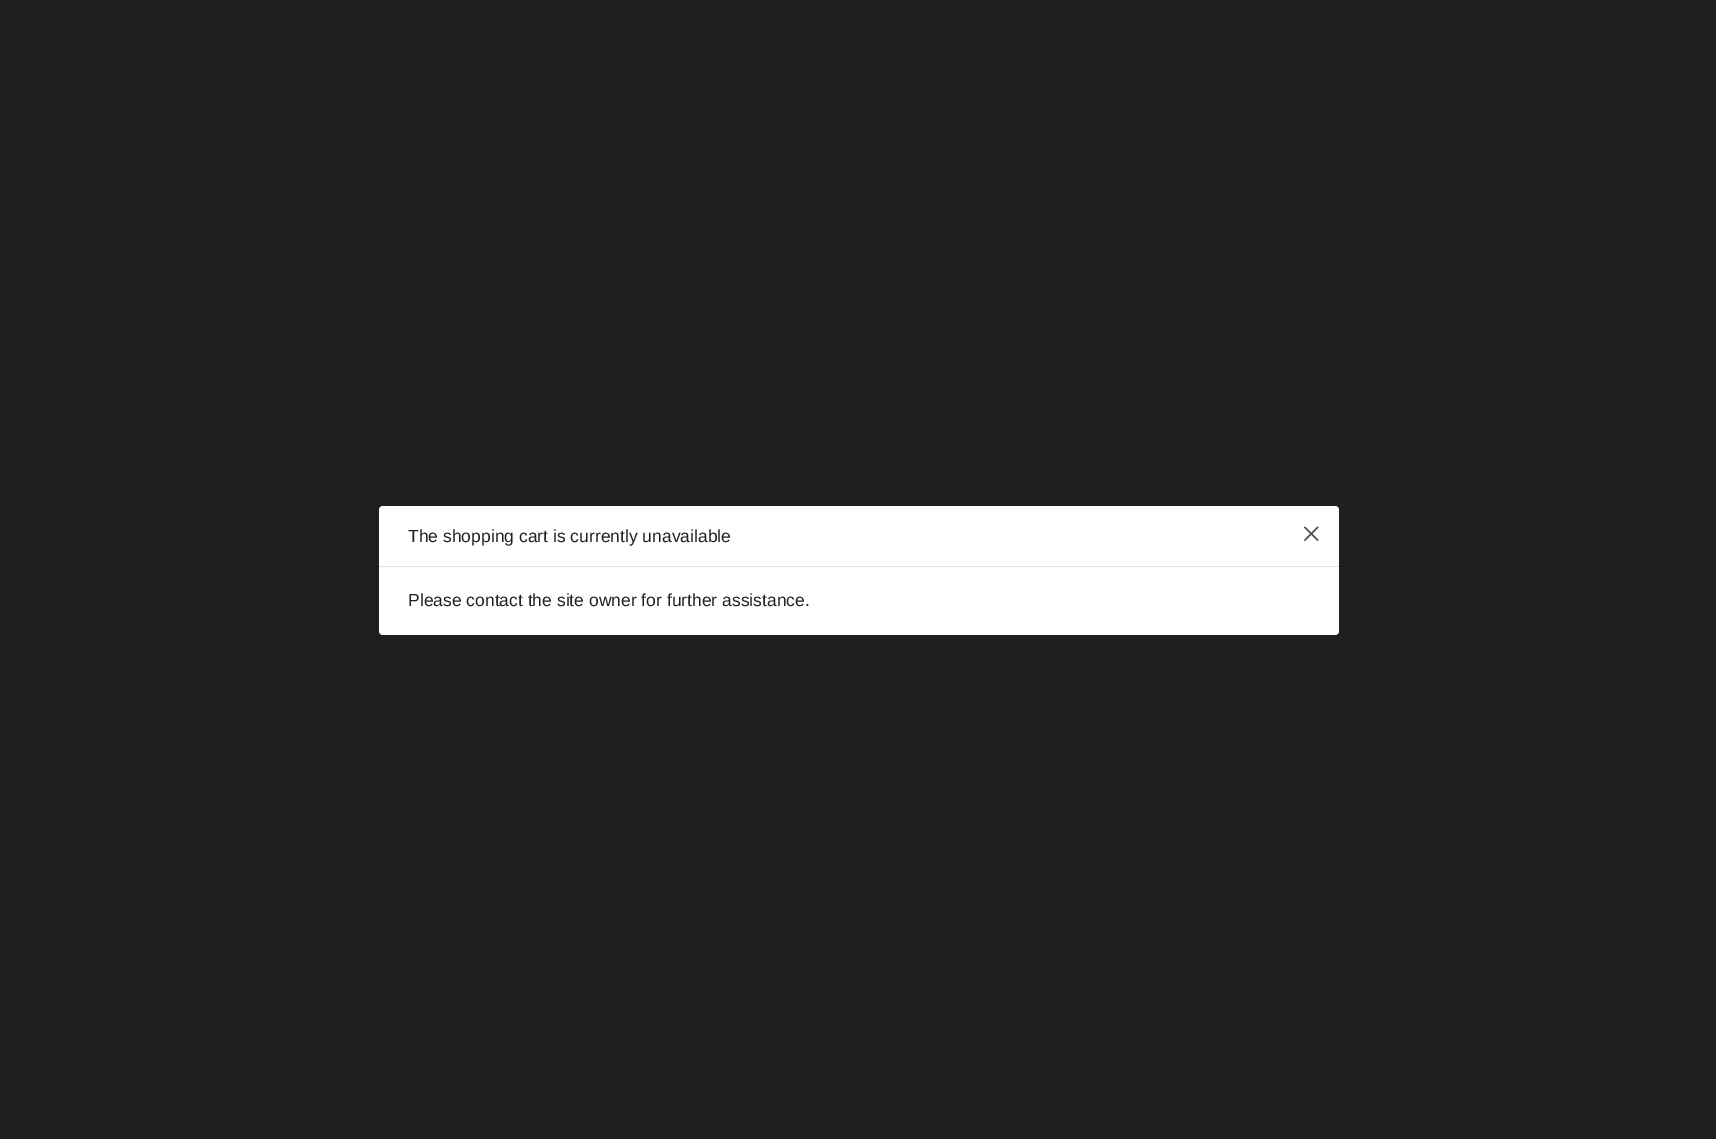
%!PS
<< /PageSize [1716 1139] >> setpagedevice
/roundrect { 5 dict begin { /r /h /w /y /x } { exch def } forall
  x r add y moveto x w add y 2 copy h add r arct x w add y h add x 1 index r arct
  x y h add x y r arct x y 2 copy exch w add exch r arct closepath end } def
/picture { 5 dict begin { /h /w /y /x /name } { exch def } forall
  gsave x y translate w h scale
  w h 8 [w 0 0 h 0 0] name (r) file false 3 colorimage grestore end } def
0 1139 translate 1 -1 scale
4 setmiterlimit
0.122 setgray
0 0 1716 1139 rectfill
(img1.rgb) 1607 17 24 23 picture
(img2.rgb) 1670 20 18 19 picture
1 setgray
379 506 960 129 4 roundrect fill
0.878 setgray
379 566 960 1 rectfill
/LiberationSans-Regular [17.5 0 0 -17.5 0 0] selectfont
0.129 setgray
408 542 moveto (The shopping cart is currently unavailable) show
408 606 moveto (Please contact the site owner for further assistance.) show
(img3.rgb) 1303 526 16 16 picture
(img4.rgb) 842 1087 14 14 picture
showpage
